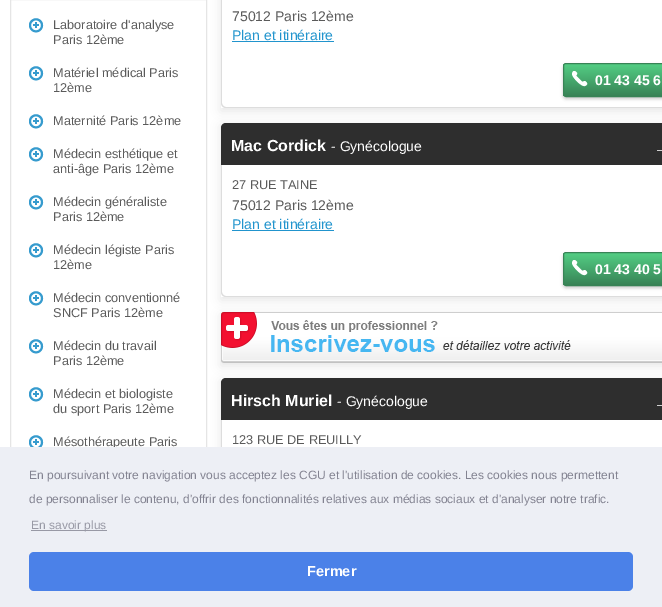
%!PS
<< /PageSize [662 607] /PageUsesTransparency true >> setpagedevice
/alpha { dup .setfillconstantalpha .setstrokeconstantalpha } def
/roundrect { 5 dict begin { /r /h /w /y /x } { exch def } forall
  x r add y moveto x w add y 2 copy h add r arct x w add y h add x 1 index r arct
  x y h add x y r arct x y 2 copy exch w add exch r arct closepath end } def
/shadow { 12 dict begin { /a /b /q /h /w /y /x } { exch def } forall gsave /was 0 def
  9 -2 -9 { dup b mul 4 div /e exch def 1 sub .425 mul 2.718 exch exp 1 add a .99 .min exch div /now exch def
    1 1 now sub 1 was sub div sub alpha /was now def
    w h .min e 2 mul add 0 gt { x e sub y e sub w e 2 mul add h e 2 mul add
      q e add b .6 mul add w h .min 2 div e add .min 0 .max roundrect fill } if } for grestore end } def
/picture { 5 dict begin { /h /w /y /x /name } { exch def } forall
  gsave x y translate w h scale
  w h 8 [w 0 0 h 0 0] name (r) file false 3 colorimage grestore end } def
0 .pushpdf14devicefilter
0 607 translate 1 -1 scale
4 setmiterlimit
1 setgray
0 0 662 607 rectfill
0.898 setgray
10.5 -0.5 196 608 rectstroke
(img1.rgb) 29 18 15 15 picture
/LiberationSans-Regular [12.75 0 0 -12.75 0 0] selectfont
0.353 setgray
53 29 moveto (Laboratoire d'analyse) show
53 44 moveto (Paris 12ème) show
(img1.rgb) 29 66 15 15 picture
53 77 moveto (Matériel médical Paris) show
53 92 moveto (12ème) show
(img1.rgb) 29 114 15 15 picture
53 125 moveto (Maternité Paris 12ème) show
(img1.rgb) 29 147 15 15 picture
53 158 moveto (Médecin esthétique et) show
53 173 moveto (anti-âge Paris 12ème) show
(img1.rgb) 29 195 15 15 picture
53 206 moveto (Médecin généraliste) show
53 221 moveto (Paris 12ème) show
(img1.rgb) 29 243 15 15 picture
53 254 moveto (Médecin légiste Paris) show
53 269 moveto (12ème) show
(img1.rgb) 29 291 15 15 picture
53 302 moveto (Médecin conventionné) show
53 317 moveto (SNCF Paris 12ème) show
(img1.rgb) 29 339 15 15 picture
53 350 moveto (Médecin du travail) show
53 365 moveto (Paris 12ème) show
(img1.rgb) 29 387 15 15 picture
53 398 moveto (Médecin et biologiste) show
53 413 moveto (du sport Paris 12ème) show
(img2.rgb) 29 435 15 12 picture
53 446 moveto (Mésothérapeute Paris) show
gsave
newpath 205 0 moveto 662 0 lineto 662 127 lineto 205 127 lineto closepath 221 -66 moveto 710 -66 lineto 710 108 lineto 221 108 lineto closepath eoclip newpath
0 setgray
221 -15 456 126 0 5 0.1 shadow
grestore
0.867 setgray
221 0 1 53 rectfill
/LiberationSans-Regular [14 0 0 -14 0 0] selectfont
0.353 setgray
232 21 moveto (75012 Paris 12ème) show
0.129 0.58 0.804 setrgbcolor
232 40 moveto (Plan et itinéraire) show
232 41 102 1 rectfill
0.867 setgray
newpath 221 53 moveto 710 53 lineto 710 103 lineto 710 106 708 108 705 108 curveto 226 108 lineto 223 108 221 106 221 103 curveto closepath 222 53 moveto 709 53 lineto 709 103 lineto 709 105 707 107 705 107 curveto 226 107 lineto 224 107 222 105 222 103 curveto closepath eofill
0 setgray
563 65 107 34 3 1.5 0.2 shadow
gsave
563 63 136 34 3 roundrect clip newpath
gsave newpath 563 64 moveto 662 64 lineto 662 96 lineto 563 96 lineto closepath clip newpath
<< /ShadingType 2 /ColorSpace /DeviceRGB /Coords [631 64 631 96] /Extend [true true] /Function << /FunctionType 2 /Domain [0 1] /C0 [0.325 0.808 0.518] /C1 [0.22 0.514 0.337] /N 1 >> >> shfill grestore
grestore
0.22 0.514 0.337 setrgbcolor
563.5 63.5 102 33 2.5 roundrect stroke
(img3.rgb) 572 71 16 16 picture
/LiberationSans-Bold [14 0 0 -14 0 0] selectfont
1 setgray
595 85 moveto (01 43 45 6) show
gsave
newpath 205 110 moveto 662 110 lineto 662 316 lineto 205 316 lineto closepath 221 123 moveto 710 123 lineto 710 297 lineto 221 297 lineto closepath eoclip newpath
0 setgray
221 126 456 174 0 5 0.1 shadow
grestore
0.18 setgray
newpath 226 123 moveto 662 123 lineto 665 123 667 125 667 128 curveto 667 165 lineto 221 165 lineto 221 128 lineto 221 125 223 123 226 123 curveto closepath fill
/LiberationSans-Bold [16 0 0 -16 0 0] selectfont
1 setgray
231 151 moveto (Mac Cordick) show
/LiberationSans-Regular [14 0 0 -14 0 0] selectfont
331 151 moveto (- Gynécologue) show
0.816 setgray
657 150 5 1 rectfill
0.867 setgray
221 165 1 77 rectfill
/LiberationSans-Regular [12.75 0 0 -12.75 0 0] selectfont
0.353 setgray
232 189 moveto (27 RUE TAINE) show
/LiberationSans-Regular [14 0 0 -14 0 0] selectfont
232 210 moveto (75012 Paris 12ème) show
0.129 0.58 0.804 setrgbcolor
232 229 moveto (Plan et itinéraire) show
232 230 102 1 rectfill
0.867 setgray
newpath 221 242 moveto 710 242 lineto 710 292 lineto 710 295 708 297 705 297 curveto 226 297 lineto 223 297 221 295 221 292 curveto closepath 222 242 moveto 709 242 lineto 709 292 lineto 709 294 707 296 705 296 curveto 226 296 lineto 224 296 222 294 222 292 curveto closepath eofill
0 setgray
563 254 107 34 3 1.5 0.2 shadow
gsave
563 252 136 34 3 roundrect clip newpath
gsave newpath 563 253 moveto 662 253 lineto 662 285 lineto 563 285 lineto closepath clip newpath
<< /ShadingType 2 /ColorSpace /DeviceRGB /Coords [631 253 631 285] /Extend [true true] /Function << /FunctionType 2 /Domain [0 1] /C0 [0.325 0.808 0.518] /C1 [0.22 0.514 0.337] /N 1 >> >> shfill grestore
grestore
0.22 0.514 0.337 setrgbcolor
563.5 252.5 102 33 2.5 roundrect stroke
(img3.rgb) 572 260 16 16 picture
/LiberationSans-Bold [14 0 0 -14 0 0] selectfont
1 setgray
595 274 moveto (01 43 40 5) show
0 setgray
221 315 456 51 0 5 0.1 shadow
(img4.rgb) 221 312 441 51 picture
(img5.rgb) 221 312 441 51 picture
gsave
newpath 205 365 moveto 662 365 lineto 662 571 lineto 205 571 lineto closepath 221 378 moveto 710 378 lineto 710 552 lineto 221 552 lineto closepath eoclip newpath
221 381 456 174 0 5 0.1 shadow
grestore
0.18 setgray
newpath 226 378 moveto 662 378 lineto 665 378 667 380 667 383 curveto 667 420 lineto 221 420 lineto 221 383 lineto 221 380 223 378 226 378 curveto closepath fill
/LiberationSans-Bold [16 0 0 -16 0 0] selectfont
1 setgray
231 406 moveto (Hirsch Muriel) show
/LiberationSans-Regular [14 0 0 -14 0 0] selectfont
337 406 moveto (- Gynécologue) show
0.816 setgray
657 405 5 1 rectfill
0.867 setgray
221 420 1 27 rectfill
/LiberationSans-Regular [12.75 0 0 -12.75 0 0] selectfont
0.353 setgray
232 444 moveto (123 RUE DE REUILLY) show
0.929 0.937 0.961 setrgbcolor
0 447 662 160 rectfill
/LiberationSans-Regular [12 0 0 -12 0 0] selectfont
0.514 0.514 0.569 setrgbcolor
29 479 moveto (En poursuivant votre navigation vous acceptez les CGU et l'utilisation de cookies. Les cookies nous permettent) show
29 503 moveto (de personnaliser le contenu, d'offrir des fonctionnalités relatives aux médias sociaux et d'analyser notre trafic.) show
0.596 0.6 0.647 setrgbcolor
31 530 76 1 rectfill
31 529 moveto (En savoir plus) show
0.294 0.506 0.91 setrgbcolor
29 552 604 39 5 roundrect fill
/LiberationSans-Bold [14.5 0 0 -14.5 0 0] selectfont
1 setgray
307 576 moveto (Fermer) show
.poppdf14devicefilter showpage
